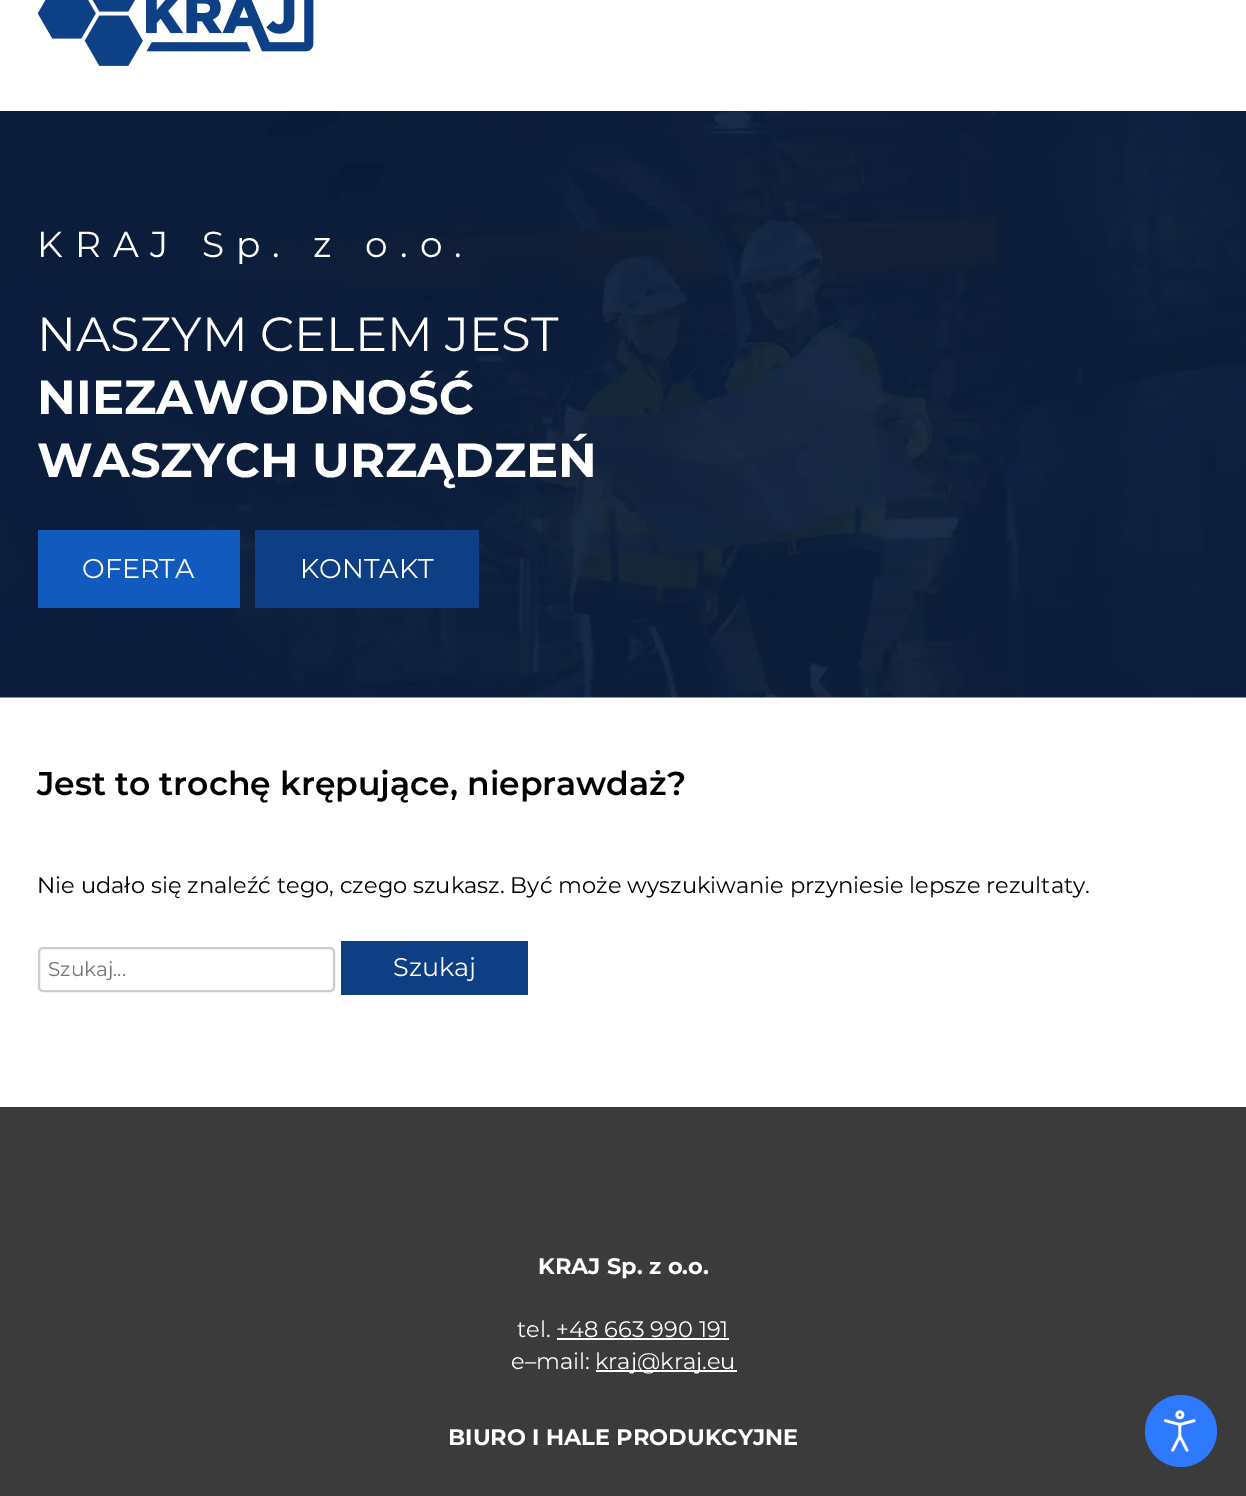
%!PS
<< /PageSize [1246 1496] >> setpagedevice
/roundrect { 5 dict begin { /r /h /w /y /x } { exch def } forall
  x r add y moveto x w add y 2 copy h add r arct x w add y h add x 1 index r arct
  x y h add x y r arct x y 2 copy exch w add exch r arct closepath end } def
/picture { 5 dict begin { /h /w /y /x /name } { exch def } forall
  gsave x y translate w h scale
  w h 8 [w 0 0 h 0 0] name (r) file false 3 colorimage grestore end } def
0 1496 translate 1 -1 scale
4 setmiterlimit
1 setgray
0 0 1246 1496 rectfill
(img1.rgb) 38 0 276 66 picture
(img2.rgb) 0 111 1246 587 picture
/Montserrat-Regular [36 0 0 -36 0 0] selectfont
37 257 moveto 12 0 (KRAJ Sp. z o.o.) ashow
/Montserrat-Regular [48 0 0 -48 0 0] selectfont
37 351 moveto (NASZYM CELEM JEST) show
/Montserrat-Bold [48 0 0 -48 0 0] selectfont
37 414 moveto (NIEZAWODNOŚĆ) show
37 477 moveto (WASZYCH URZĄDZEŃ) show
0.075 0.353 0.745 setrgbcolor
38 530 202 78 rectfill
/Montserrat-Regular [27 0 0 -27 0 0] selectfont
1 setgray
82 578 moveto (OFERTA) show
0.055 0.247 0.518 setrgbcolor
255 530 224 78 rectfill
1 setgray
300 578 moveto (KONTAKT) show
/Montserrat-SemiBold [33 0 0 -33 0 0] selectfont
0 setgray
37 795 moveto (Jest to trochę krępujące, nieprawdaż?) show
/Montserrat-Regular [22.5 0 0 -22.5 0 0] selectfont
37 893 moveto (Nie udało się znaleźć tego, czego szukasz. Być może wyszukiwanie przyniesie lepsze rezultaty.) show
0.8 setgray
2 setlinewidth
39 948 295 43 4 roundrect stroke
/Montserrat-Regular [20 0 0 -20 0 0] selectfont
0.459 setgray
48 976 moveto (Szukaj...) show
0.055 0.247 0.518 setrgbcolor
341 941 187 54 rectfill
/Montserrat-Regular [25.5 0 0 -25.5 0 0] selectfont
1 setgray
393 976 moveto (Szukaj) show
0.231 setgray
0 1107 1246 389 rectfill
/Montserrat-Bold [22.5 0 0 -22.5 0 0] selectfont
1 setgray
538 1274 moveto (KRAJ Sp. z o.o.) show
/Montserrat-Regular [22.5 0 0 -22.5 0 0] selectfont
517 1337 moveto (tel. +48 663 990 191) show
557 1338 172 2 rectfill
511 1369 moveto (e–mail:) show
596 1370 141 2 rectfill
595 1369 moveto (kraj@kraj.eu) show
/Montserrat-Bold [22.5 0 0 -22.5 0 0] selectfont
448 1445 moveto (BIURO I HALE PRODUKCYJNE) show
0.176 0.475 1 setrgbcolor
newpath 1181 1431 36 0 360 arc closepath fill
(img3.rgb) 1163 1410 33 42 picture
showpage
